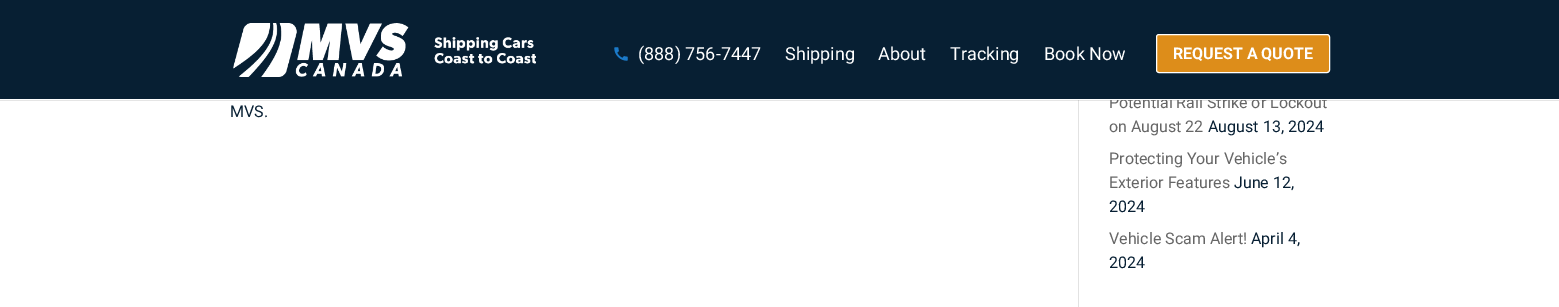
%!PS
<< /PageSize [1559 307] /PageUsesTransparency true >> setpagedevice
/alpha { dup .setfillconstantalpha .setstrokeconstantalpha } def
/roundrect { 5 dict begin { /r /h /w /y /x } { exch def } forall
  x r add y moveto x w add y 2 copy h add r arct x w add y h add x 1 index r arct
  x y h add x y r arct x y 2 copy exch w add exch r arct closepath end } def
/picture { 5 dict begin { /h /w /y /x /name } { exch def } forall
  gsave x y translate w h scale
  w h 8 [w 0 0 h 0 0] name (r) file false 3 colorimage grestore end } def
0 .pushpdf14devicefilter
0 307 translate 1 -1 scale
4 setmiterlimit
1 setgray
0 0 1559 307 rectfill
0.886 setgray
1078 100 1 207 rectfill
0.1 alpha
0 setgray
0 100 1559 1 rectfill
/Roboto-Regular [16 0 0 -16 0 0] selectfont
1 alpha
0.4 setgray
1109 108 moveto (Potential Rail Strike or Lockout) show
0.027 0.122 0.2 setrgbcolor
0 0 1559 99 rectfill
1 setgray
1110 99 217 1 rectfill
(img1.rgb) 233 23 303 54 picture
(img2.rgb) 614 47 14 14 picture
/Roboto-Regular [18 0 0 -18 0 0] selectfont
638 60 moveto (\(888\) 756-7447) show
785 60 moveto (Shipping) show
878 60 moveto (About) show
950 60 moveto (Tracking) show
1044 60 moveto (Book Now) show
0.867 0.553 0.102 setrgbcolor
1156.5 34.5 173 38 2.5 roundrect gsave fill grestore
1 setgray
stroke
/Roboto-Bold [16 0 0 -16 0 0] selectfont
1173 59 moveto (REQUEST A QUOTE) show
/Roboto-Regular [16 0 0 -16 0 0] selectfont
0.027 0.122 0.2 setrgbcolor
230 117 moveto (MVS.) show
0.4 setgray
1109 132 moveto (on August 22) show
0.027 0.122 0.2 setrgbcolor
1208 132 moveto (August 13, 2024) show
0.4 setgray
1109 164 moveto (Protecting Your Vehicle’s) show
1109 188 moveto (Exterior Features) show
0.027 0.122 0.2 setrgbcolor
1234 188 moveto (June 12,) show
1109 212 moveto (2024) show
0.4 setgray
1109 244 moveto (Vehicle Scam Alert!) show
0.027 0.122 0.2 setrgbcolor
1251 244 moveto (April 4,) show
1109 268 moveto (2024) show
.poppdf14devicefilter showpage
